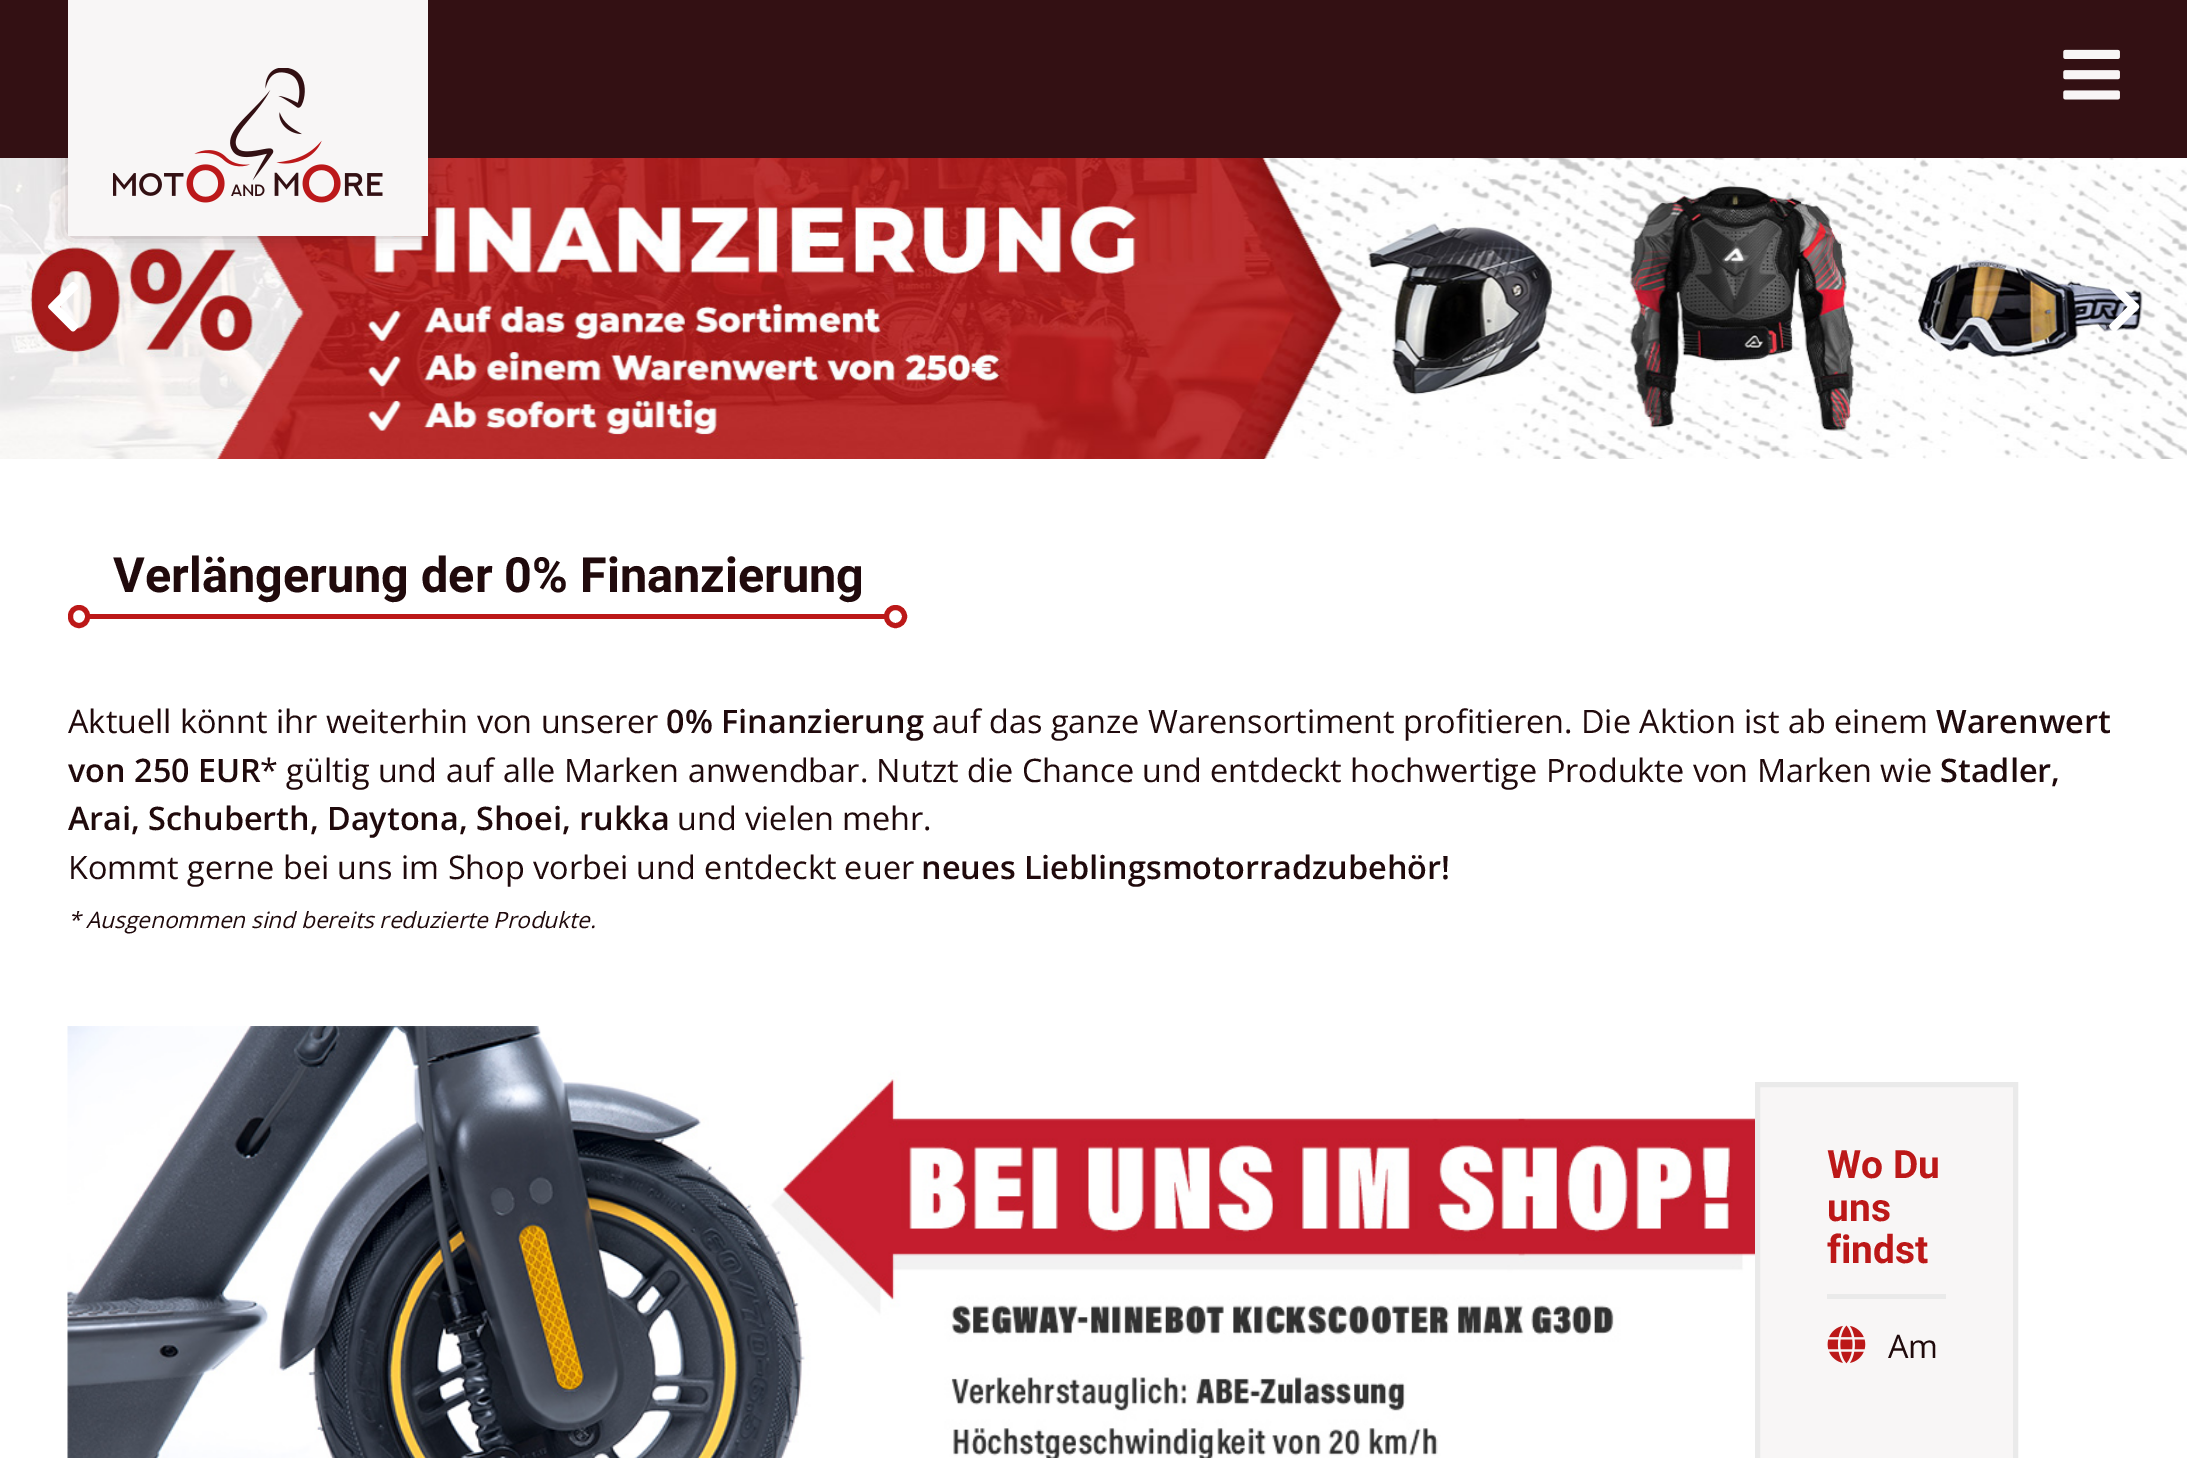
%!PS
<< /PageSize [2187 1458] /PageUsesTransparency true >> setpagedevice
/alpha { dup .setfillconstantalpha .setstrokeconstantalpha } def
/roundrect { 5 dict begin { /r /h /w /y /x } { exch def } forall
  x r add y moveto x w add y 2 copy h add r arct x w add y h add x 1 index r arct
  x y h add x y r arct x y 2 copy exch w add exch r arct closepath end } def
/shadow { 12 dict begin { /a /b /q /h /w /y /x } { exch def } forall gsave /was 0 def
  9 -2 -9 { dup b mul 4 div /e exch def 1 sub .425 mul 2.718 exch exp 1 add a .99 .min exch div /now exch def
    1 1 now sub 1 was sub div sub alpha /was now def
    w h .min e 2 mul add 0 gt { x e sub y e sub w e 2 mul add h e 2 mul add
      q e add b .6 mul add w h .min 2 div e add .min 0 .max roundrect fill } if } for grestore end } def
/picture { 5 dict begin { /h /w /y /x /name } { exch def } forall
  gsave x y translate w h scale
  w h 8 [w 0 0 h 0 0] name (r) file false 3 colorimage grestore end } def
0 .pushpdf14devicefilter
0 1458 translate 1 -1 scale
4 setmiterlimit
1 setgray
0 0 2187 1458 rectfill
0.2 0.063 0.075 setrgbcolor
0 0 2187 158 rectfill
(img1.rgb) 2063 49 57 51 picture
(img3.rgb) 0 158 2187 301 picture
72 5 351 227 0 9 0.5 shadow
0.973 0.965 0.965 setrgbcolor
68 0 360 236 rectfill
(img2.rgb) 113 68 270 135 picture
(img4.rgb) 48 282 31 50 picture
(img5.rgb) 2109 286 31 45 picture
0.737 0.094 0.094 setrgbcolor
68 614 839 5 rectfill
/Roboto-Bold [48.6 0 0 -48.6 0 0] selectfont
0.125 0.039 0.047 setrgbcolor
113 592 moveto (Verlängerung der 0% Finanzierung) show
1 setgray
70.5 607.5 17 18 8.5 roundrect gsave fill grestore
0.737 0.094 0.094 setrgbcolor
5 setlinewidth
stroke
1 setgray
newpath 895.5 616.5 9 0 360 arc closepath gsave fill grestore
0.737 0.094 0.094 setrgbcolor
stroke
/OpenSans-Regular [32.4 0 0 -32.4 0 0] selectfont
0.125 0.039 0.047 setrgbcolor
68 733 moveto (Aktuell könnt ihr weiterhin von unserer) show
/OpenSans-SemiBold [32.4 0 0 -32.4 0 0] selectfont
666 733 moveto (0% Finanzierung) show
/OpenSans-Regular [32.4 0 0 -32.4 0 0] selectfont
932 733 moveto (auf das ganze Warensortiment profitieren. Die Aktion ist ab einem) show
/OpenSans-SemiBold [32.4 0 0 -32.4 0 0] selectfont
1936 733 moveto (Warenwert) show
68 782 moveto (von 250 EUR) show
/OpenSans-Regular [32.4 0 0 -32.4 0 0] selectfont
260 782 moveto (* gültig und auf alle Marken anwendbar. Nutzt die Chance und entdeckt hochwertige Produkte von Marken wie) show
/OpenSans-SemiBold [32.4 0 0 -32.4 0 0] selectfont
1940 782 moveto (Stadler,) show
68 830 moveto (Arai, Schuberth, Daytona, Shoei, rukka) show
/OpenSans-Regular [32.4 0 0 -32.4 0 0] selectfont
677 830 moveto (und vielen mehr.) show
68 879 moveto (Kommt gerne bei uns im Shop vorbei und entdeckt euer) show
/OpenSans-SemiBold [32.4 0 0 -32.4 0 0] selectfont
921 879 moveto (neues Lieblingsmotorradzubehör!) show
/OpenSans-Italic [22.5 0 0 -22.5 0 0] selectfont
68 928 moveto (* Ausgenommen sind bereits reduzierte Produkte.) show
(img6.rgb) 67 1026 1688 432 picture
0.973 0.965 0.965 setrgbcolor
newpath 1757.5 1084.5 moveto 2015.5 1084.5 lineto 2015.5 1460.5 lineto 1757.5 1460.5 lineto closepath gsave fill grestore
0.918 setgray
stroke
1827 1294 119 5 rectfill
/Roboto-Bold [39 0 0 -39 0 0] selectfont
0.737 0.094 0.094 setrgbcolor
1827 1178 moveto (Wo Du) show
1827 1221 moveto (uns) show
1827 1263 moveto (findst) show
(img7.rgb) 1827 1325 39 39 picture
/OpenSans-Regular [32.4 0 0 -32.4 0 0] selectfont
0.125 0.039 0.047 setrgbcolor
1888 1358 moveto (Am) show
.poppdf14devicefilter showpage
